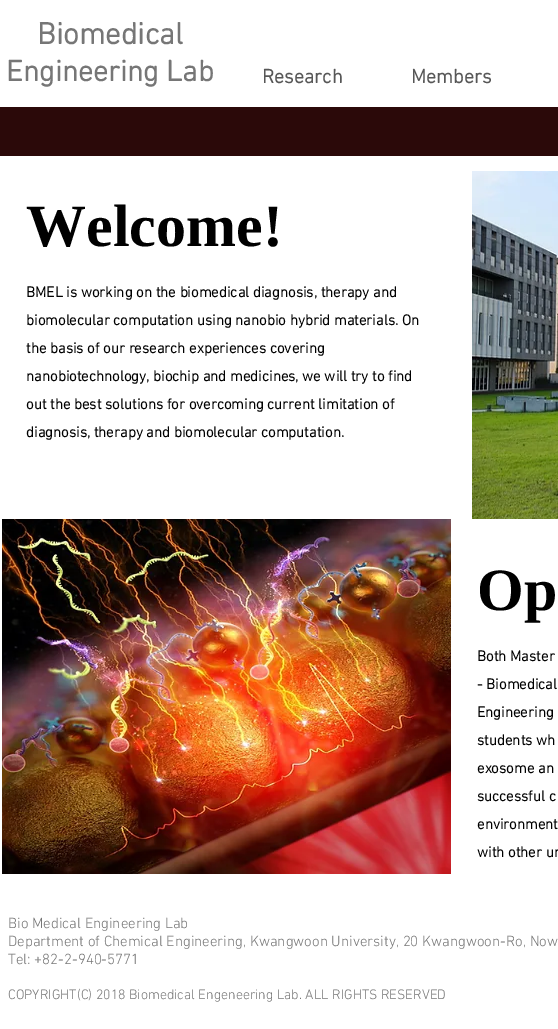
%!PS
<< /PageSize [558 1029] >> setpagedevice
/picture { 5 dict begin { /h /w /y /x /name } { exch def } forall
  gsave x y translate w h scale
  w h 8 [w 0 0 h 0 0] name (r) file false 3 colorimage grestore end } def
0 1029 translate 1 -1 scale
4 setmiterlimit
1 setgray
0 0 558 1029 rectfill
/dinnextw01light-Bold [31 0 0 -31 0 0] selectfont
0.463 setgray
37 44 moveto (Biomedical) show
/dinnextw01light-Bold [30 0 0 -30 0 0] selectfont
6 81 moveto (Engineering Lab) show
/dinnextw01light-Bold [20 0 0 -20 0 0] selectfont
0.341 setgray
262 83 moveto (Research) show
411 83 moveto (Members) show
0.169 0.035 0.035 setrgbcolor
0 107 558 49 rectfill
/LiberationSerif-Bold [60 0 0 -60 0 0] selectfont
0 setgray
26 246 moveto (Welcome!) show
/dinnextw01light-Bold [15 0 0 -15 0 0] selectfont
26 297 moveto (BMEL is working on the biomedical diagnosis, therapy and) show
26 325 moveto (biomolecular computation using nanobio hybrid materials. On) show
26 353 moveto (the basis of our research experiences covering) show
26 381 moveto (nanobiotechnology, biochip and medicines, we will try to find) show
26 409 moveto (out the best solutions for overcoming current limitation of) show
26 437 moveto (diagnosis, therapy and biomolecular computation.) show
(img1.rgb) 472 171 86 348 picture
(img2.rgb) 2 519 449 355 picture
/LiberationSerif-Bold [60 0 0 -60 0 0] selectfont
477 610 moveto (Op) show
/dinnextw01light-Bold [15 0 0 -15 0 0] selectfont
477 661 moveto (Both Master) show
477 689 moveto (- Biomedical) show
477 717 moveto (Engineering) show
477 745 moveto (students wh) show
477 773 moveto (exosome an) show
477 801 moveto (successful c) show
477 829 moveto (environment) show
477 857 moveto (with other un) show
/dinnextw01light-Light [15 0 0 -15 0 0] selectfont
0.463 setgray
8 928 moveto (Bio Medical Engineering Lab) show
8 946 moveto (Department of Chemical Engineering, Kwangwoon University, 20 Kwangwoon-Ro, Now) show
8 964 moveto (Tel: +82-2-940-5771) show
/dinnextw01light-Light [14 0 0 -14 0 0] selectfont
8 999 moveto (COPYRIGHT\(C\) 2018 Biomedical Engeneering Lab. ALL RIGHTS RESERVED) show
showpage
